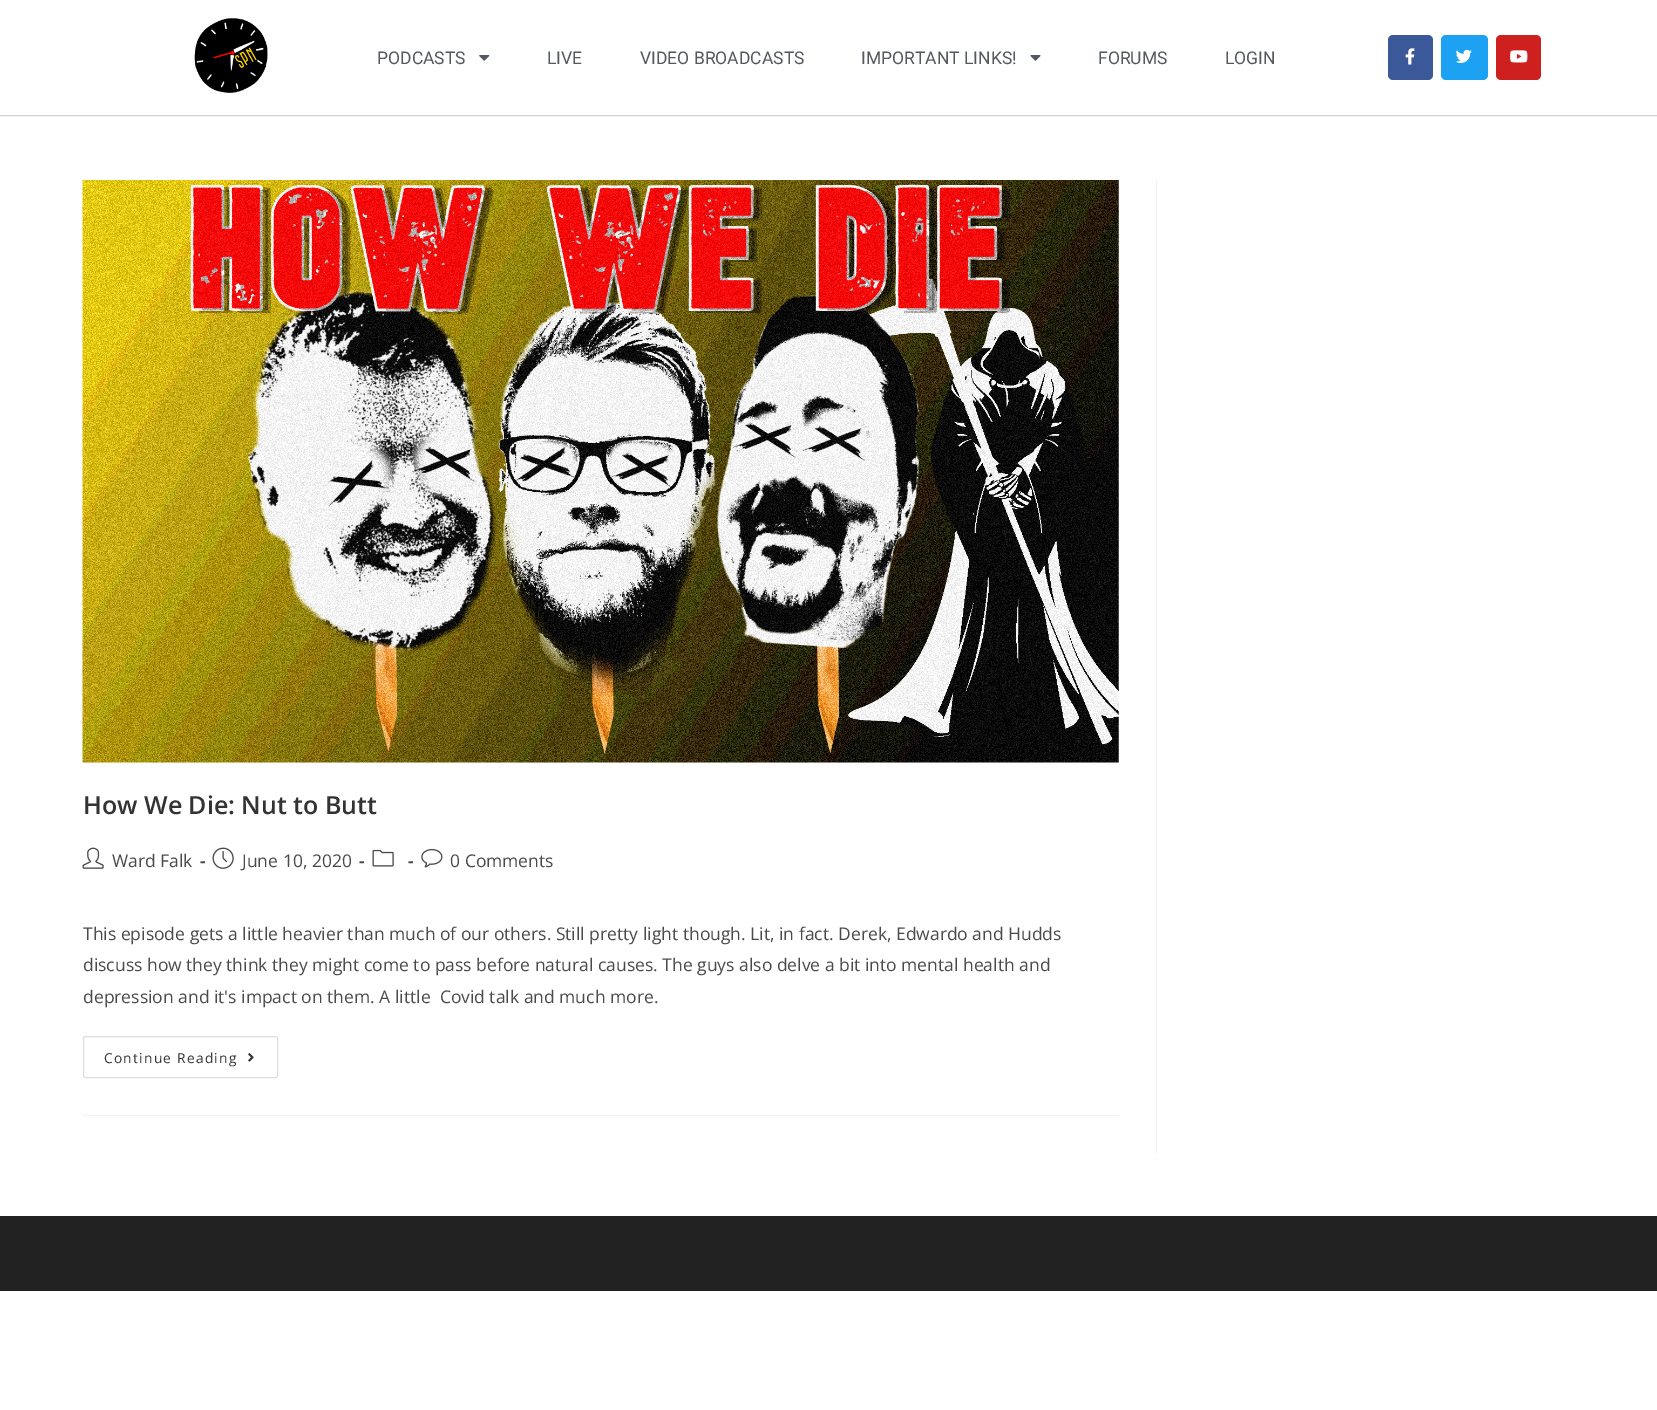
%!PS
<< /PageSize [1657 1410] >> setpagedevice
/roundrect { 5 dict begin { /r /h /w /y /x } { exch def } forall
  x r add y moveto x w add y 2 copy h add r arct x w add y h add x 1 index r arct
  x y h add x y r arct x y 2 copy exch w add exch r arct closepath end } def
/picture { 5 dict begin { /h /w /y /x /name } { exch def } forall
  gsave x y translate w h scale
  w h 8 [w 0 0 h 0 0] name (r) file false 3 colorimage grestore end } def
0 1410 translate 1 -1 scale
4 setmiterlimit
1 setgray
0 0 1657 1410 rectfill
0.945 setgray
0 116 1657 1 rectfill
0.827 setgray
0 115 1657 1 rectfill
(img1.rgb) 194 18 74 75 picture
/Roboto-Regular [17.5 0 0 -17.5 0 0] selectfont
0.329 0.349 0.373 setrgbcolor
377 64 moveto (PODCASTS) show
(img2.rgb) 479 55 11 6 picture
547 64 moveto (LIVE) show
640 64 moveto (VIDEO BROADCASTS) show
861 64 moveto (IMPORTANT LINKS!) show
(img3.rgb) 1030 55 11 6 picture
1098 64 moveto (FORUMS) show
1225 64 moveto (LOGIN) show
0.231 0.349 0.596 setrgbcolor
1388 35 45 45 5 roundrect fill
(img4.rgb) 1405 48 10 17 picture
0.114 0.631 0.949 setrgbcolor
1441 35 47 45 5 roundrect fill
(img5.rgb) 1455 49 17 14 picture
0.804 0.125 0.122 setrgbcolor
1496 35 45 45 5 roundrect fill
(img6.rgb) 1510 50 18 13 picture
0.945 setgray
1156 180 1 974 rectfill
83 1115 1036 1 rectfill
(img7.rgb) 82 180 1037 583 picture
/OpenSans-SemiBold [25 0 0 -25 0 0] selectfont
0.2 setgray
83 814 moveto (How We Die: Nut to Butt) show
(img8.rgb) 82 847 22 22 picture
/OpenSans-Regular [17.5 0 0 -17.5 0 0] selectfont
0.29 setgray
112 867 moveto (Ward Falk) show
/OpenSans-Bold [17.5 0 0 -17.5 0 0] selectfont
200 867 moveto (-) show
(img9.rgb) 212 847 22 22 picture
/OpenSans-Regular [17.5 0 0 -17.5 0 0] selectfont
242 867 moveto (June 10, 2020) show
/OpenSans-Bold [17.5 0 0 -17.5 0 0] selectfont
359 867 moveto (-) show
(img10.rgb) 372 849 22 18 picture
408 867 moveto (-) show
(img11.rgb) 421 848 22 20 picture
/OpenSans-Regular [17.5 0 0 -17.5 0 0] selectfont
450 867 moveto (0 Comments) show
83 940 moveto (This episode gets a little heavier than much of our others. Still pretty light though. Lit, in fact. Derek, Edwardo and Hudds) show
83 971 moveto (discuss how they think they might come to pass before natural causes. The guys also delve a bit into mental health and) show
83 1003 moveto (depression and it's impact on them. A little  Covid talk and much more.) show
0.867 setgray
83.5 1036.5 194 41 2 roundrect stroke
/OpenSans-Regular [13.75 0 0 -13.75 0 0] selectfont
0.2 setgray
104 1063 moveto 1.25 0 (Continue Reading) ashow
(img12.rgb) 248 1053 6 9 picture
0.133 setgray
0 1216 1657 75 rectfill
showpage
